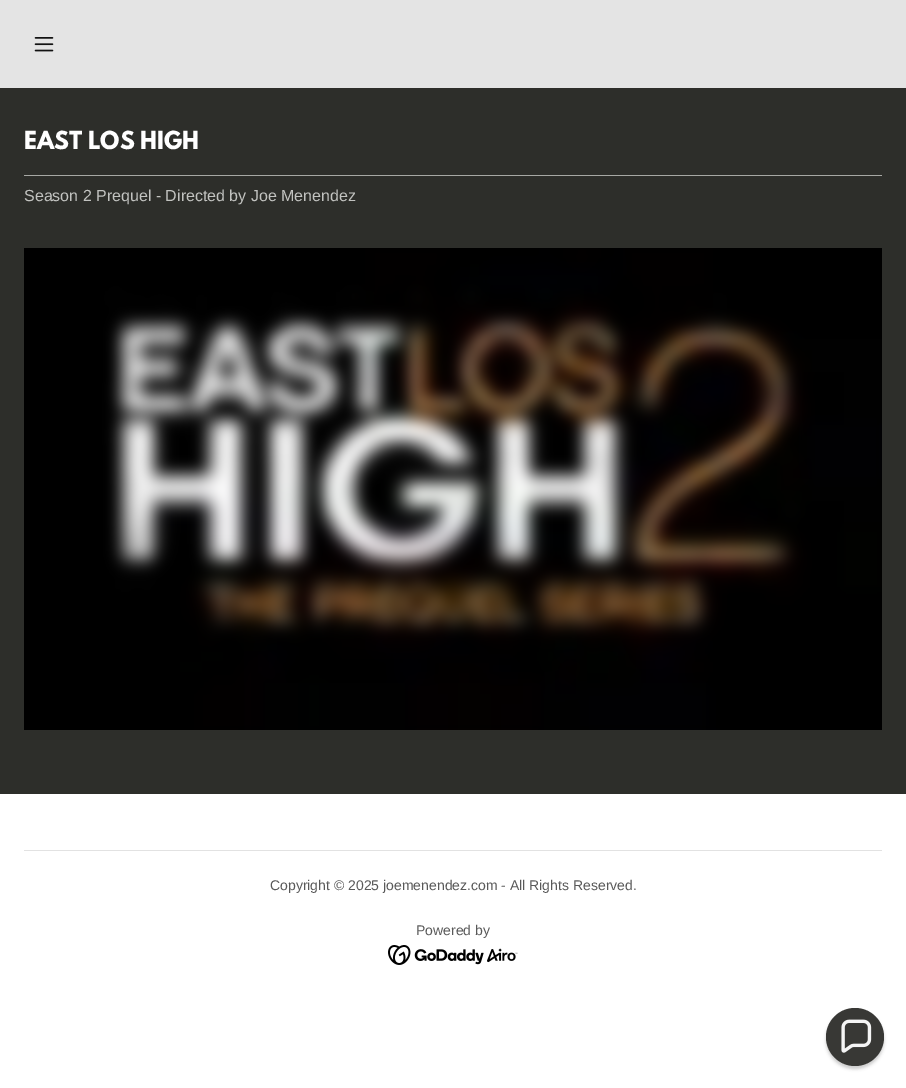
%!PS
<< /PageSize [906 1088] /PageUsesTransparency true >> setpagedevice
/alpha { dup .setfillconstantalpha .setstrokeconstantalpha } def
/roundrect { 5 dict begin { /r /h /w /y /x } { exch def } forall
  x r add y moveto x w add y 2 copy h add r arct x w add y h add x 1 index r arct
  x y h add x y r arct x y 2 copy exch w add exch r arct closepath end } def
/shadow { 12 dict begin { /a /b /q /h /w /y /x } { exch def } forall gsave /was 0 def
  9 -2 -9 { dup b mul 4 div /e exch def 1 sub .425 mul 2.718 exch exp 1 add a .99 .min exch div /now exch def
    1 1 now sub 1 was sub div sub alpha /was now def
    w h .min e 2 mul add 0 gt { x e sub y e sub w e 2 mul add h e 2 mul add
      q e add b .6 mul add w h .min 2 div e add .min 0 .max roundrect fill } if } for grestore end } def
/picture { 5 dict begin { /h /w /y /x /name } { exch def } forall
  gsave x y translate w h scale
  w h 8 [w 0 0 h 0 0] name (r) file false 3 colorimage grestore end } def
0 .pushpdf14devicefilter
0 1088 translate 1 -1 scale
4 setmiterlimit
1 setgray
0 0 906 1088 rectfill
0.894 setgray
0 0 906 88 rectfill
(img1.rgb) 34 37 20 15 picture
0.176 0.18 0.165 setrgbcolor
0 88 906 706 rectfill
/LeagueSpartan-Bold [22 0 0 -22 0 0] selectfont
1 setgray
24 149 moveto (EAST LOS HIGH) show
0.655 0.659 0.643 setrgbcolor
24 175 858 1 rectfill
/LiberationSans-Regular [16 0 0 -16 0 0] selectfont
0.761 0.765 0.753 setrgbcolor
24 201 moveto (Season 2 Prequel - Directed by Joe Menendez) show
(img2.rgb) 24 248 858 482 picture
0.886 setgray
24 850 858 1 rectfill
/LiberationSans-Regular [14 0 0 -14 0 0] selectfont
0.349 setgray
270 890 moveto (Copyright © 2025 joemenendez.com - All Rights Reserved.) show
416 935 moveto (Powered by) show
(img3.rgb) 388 945 130 20 picture
0.051 setgray
826 1011 58 58 29 1.5 0.2 shadow
0.22 0.22 0.208 setrgbcolor
newpath 855 1037 29 0 360 arc closepath fill
(img4.rgb) 841 1019 31 34 picture
.poppdf14devicefilter showpage
